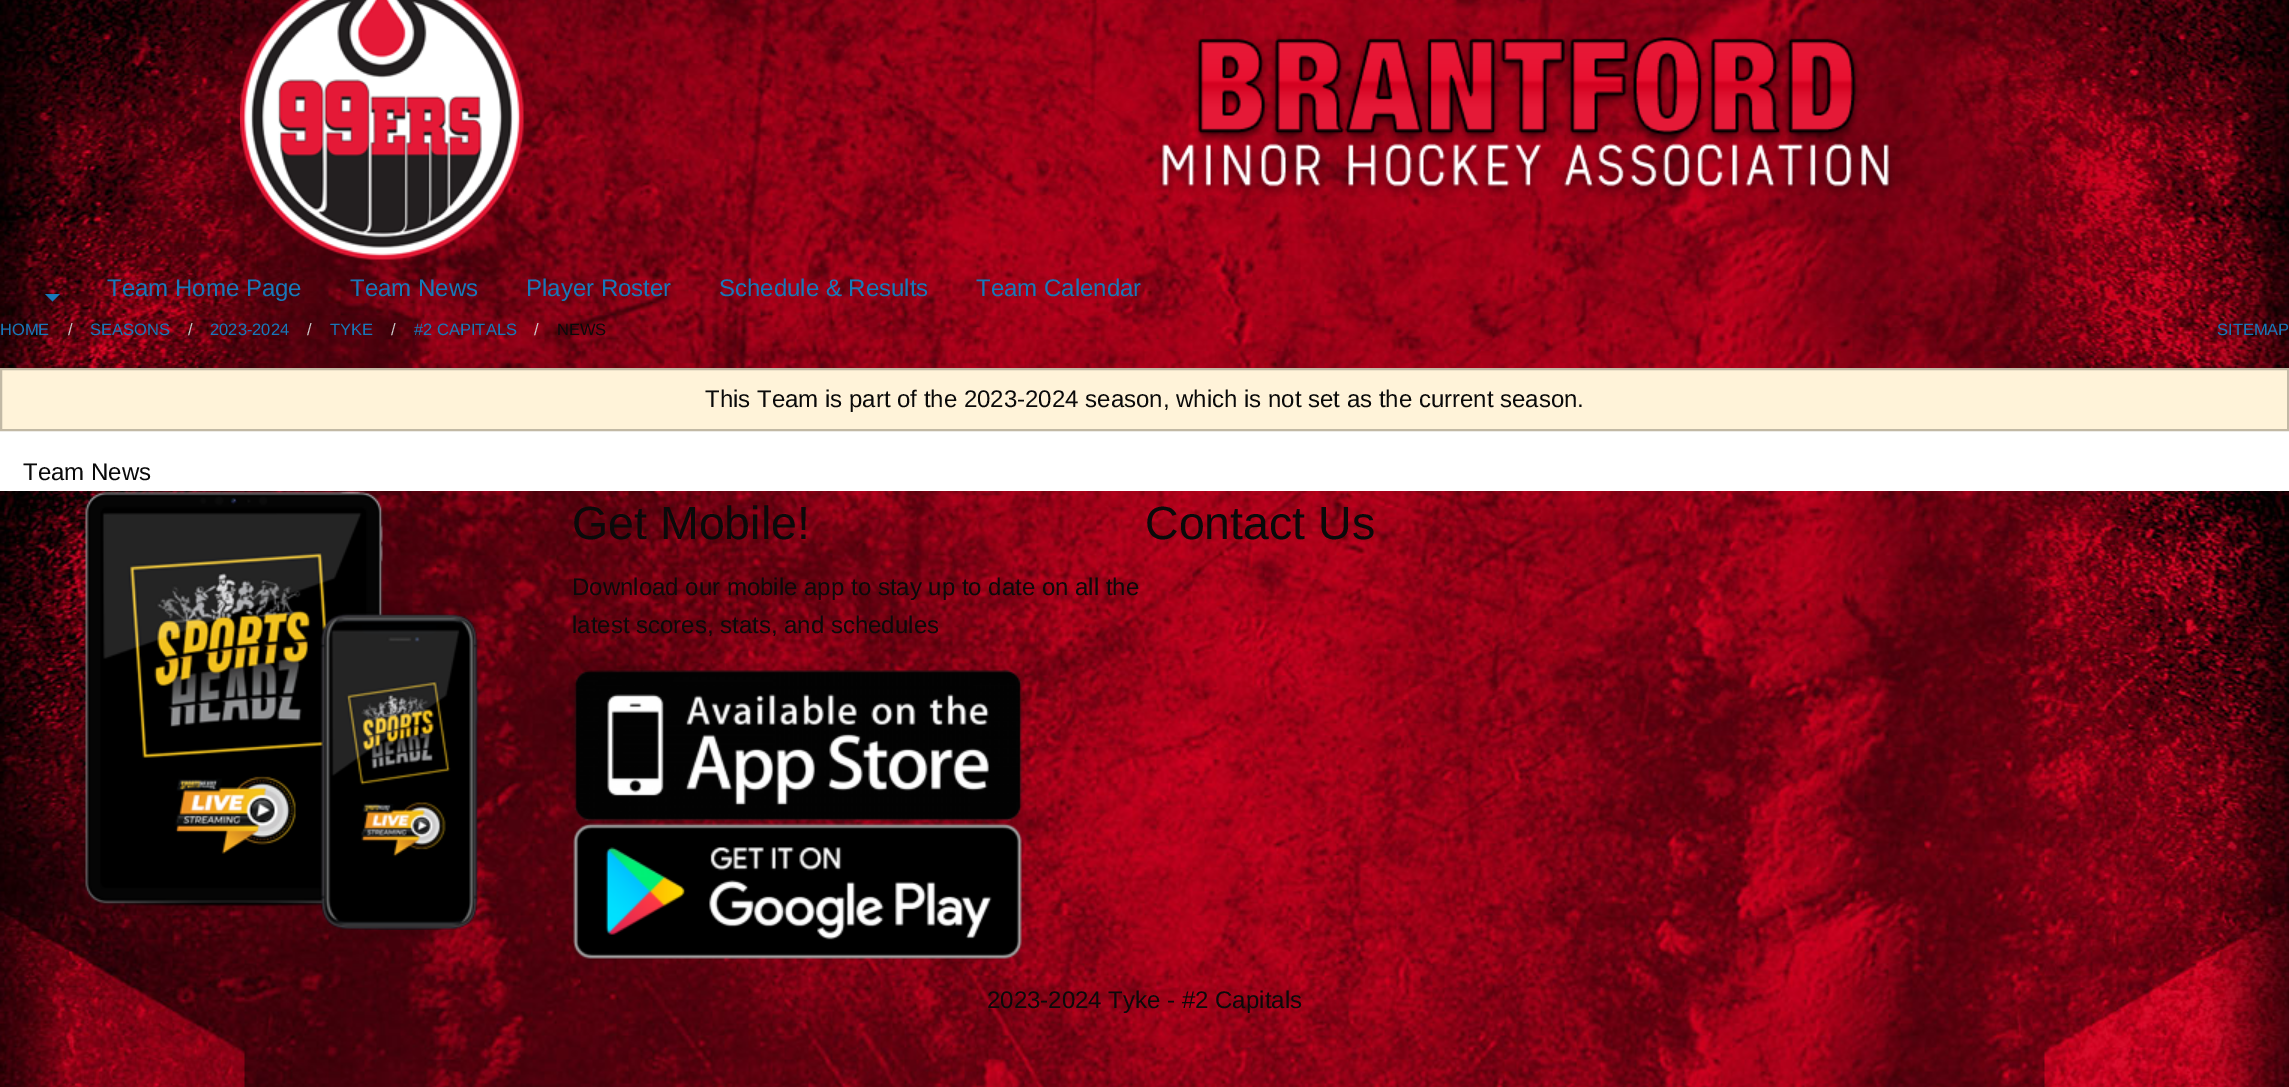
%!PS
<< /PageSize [2289 1087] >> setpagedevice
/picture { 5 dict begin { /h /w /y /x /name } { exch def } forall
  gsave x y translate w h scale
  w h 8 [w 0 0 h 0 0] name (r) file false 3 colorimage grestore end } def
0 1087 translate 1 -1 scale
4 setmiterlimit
1 setgray
0 0 2289 1087 rectfill
(img1.rgb) 0 0 2289 1087 picture
(img2.rgb) 240 0 284 260 picture
(img3.rgb) 1155 36 740 161 picture
0.09 0.475 0.729 setrgbcolor
newpath 45 294 moveto 60 294 lineto 52.5 301.5 lineto closepath fill
/LiberationSans-Regular [24 0 0 -24 0 0] selectfont
107 296 moveto (Team Home Page) show
350 296 moveto (Team News) show
526 296 moveto (Player Roster) show
719 296 moveto (Schedule & Results) show
976 296 moveto (Team Calendar) show
/LiberationSans-Regular [16.5 0 0 -16.5 0 0] selectfont
0 335 moveto (HOME) show
0.792 setgray
68 335 moveto (/) show
0.09 0.475 0.729 setrgbcolor
90 335 moveto (SEASONS) show
0.792 setgray
188 335 moveto (/) show
0.09 0.475 0.729 setrgbcolor
210 335 moveto (2023-2024) show
0.792 setgray
307 335 moveto (/) show
0.09 0.475 0.729 setrgbcolor
330 335 moveto (TYKE) show
0.792 setgray
391 335 moveto (/) show
0.09 0.475 0.729 setrgbcolor
414 335 moveto (#2 CAPITALS) show
0.792 setgray
534 335 moveto (/) show
0.039 setgray
557 335 moveto (NEWS) show
0.09 0.475 0.729 setrgbcolor
2217 335 moveto (SITEMAP) show
1 setgray
0 431 2289 60 rectfill
1 0.953 0.851 setrgbcolor
newpath 1 369 moveto 2288 369 lineto 2288 430 lineto 1 430 lineto closepath gsave fill grestore
0.761 0.725 0.647 setrgbcolor
2 setlinewidth
stroke
/LiberationSans-Regular [24 0 0 -24 0 0] selectfont
0.039 setgray
705 407 moveto (This Team is part of the 2023-2024 season, which is not set as the current season.) show
23 480 moveto (Team News) show
(img4.rgb) 82 490 401 440 picture
/LiberationSans-Regular [46.5 0 0 -46.5 0 0] selectfont
572 539 moveto (Get Mobile!) show
/LiberationSans-Regular [24 0 0 -24 0 0] selectfont
572 595 moveto (Download our mobile app to stay up to date on all the) show
572 633 moveto (latest scores, stats, and schedules) show
(img5.rgb) 574 670 448 151 picture
(img6.rgb) 573 823 449 136 picture
/LiberationSans-Regular [46.5 0 0 -46.5 0 0] selectfont
1145 539 moveto (Contact Us) show
/LiberationSans-Regular [24 0 0 -24 0 0] selectfont
987 1008 moveto (2023-2024 Tyke - #2 Capitals) show
showpage
